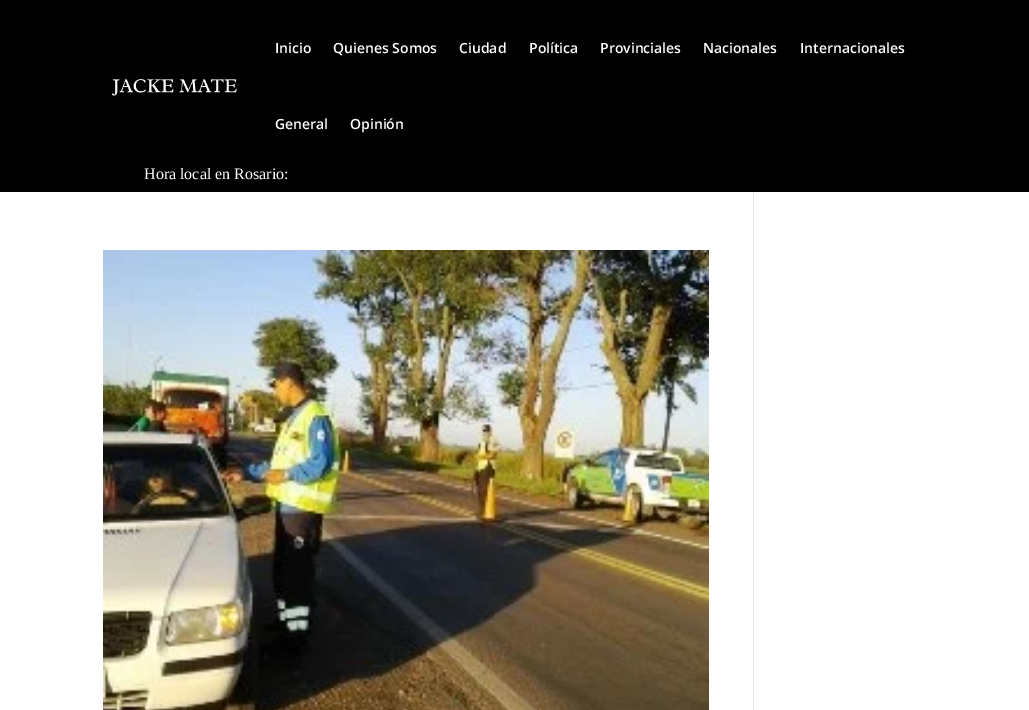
%!PS
<< /PageSize [1029 710] >> setpagedevice
/picture { 5 dict begin { /h /w /y /x /name } { exch def } forall
  gsave x y translate w h scale
  w h 8 [w 0 0 h 0 0] name (r) file false 3 colorimage grestore end } def
0 710 translate 1 -1 scale
4 setmiterlimit
1 setgray
0 0 1029 710 rectfill
0 setgray
0 0 1029 192 rectfill
(img1.rgb) 112 79 125 17 picture
/OpenSans-SemiBold [14 0 0 -14 0 0] selectfont
1 setgray
275 53 moveto (Inicio) show
333 53 moveto (Quienes Somos) show
459 53 moveto (Ciudad) show
529 53 moveto (Política) show
600 53 moveto (Provinciales) show
703 53 moveto (Nacionales) show
800 53 moveto (Internacionales) show
275 129 moveto (General) show
350 129 moveto (Opinión) show
/LiberationSerif-Regular [16 0 0 -16 0 0] selectfont
144 179 moveto (Hora local en Rosario:) show
(img2.rgb) 103 250 606 460 picture
0.886 setgray
753 192 1 518 rectfill
showpage
